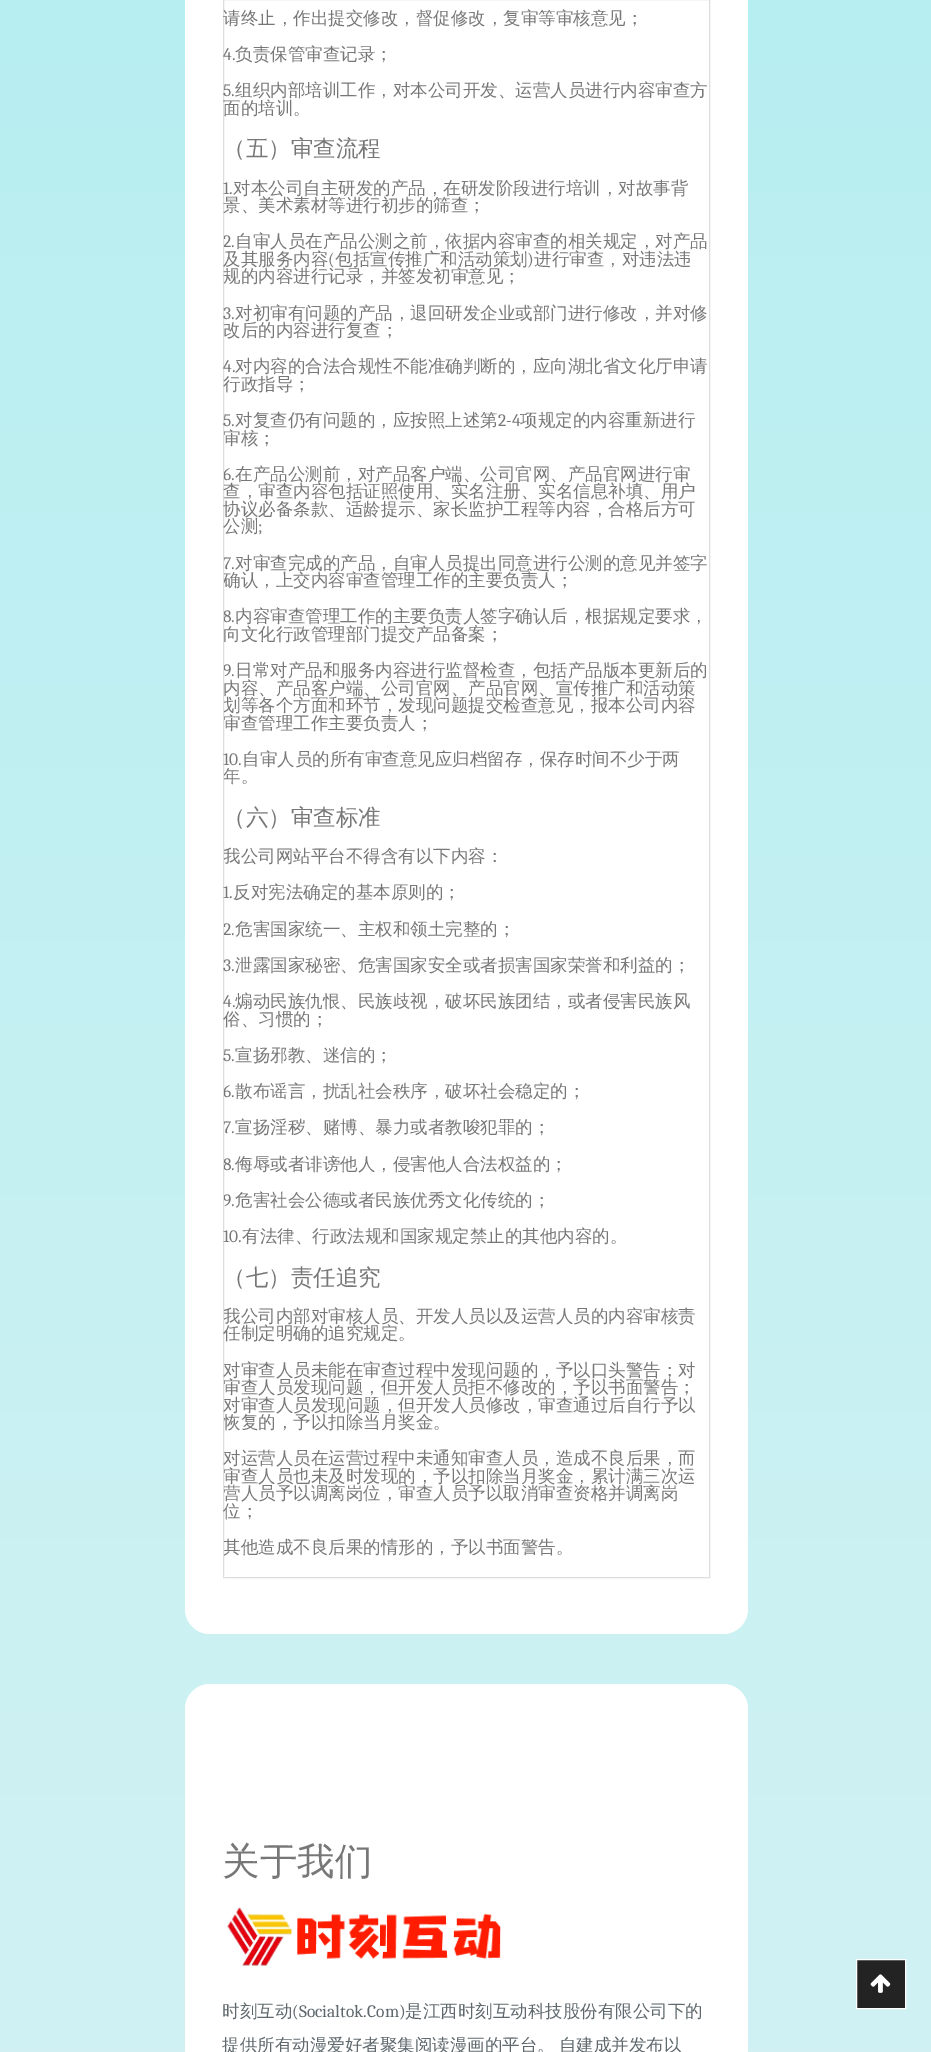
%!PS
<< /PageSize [931 2052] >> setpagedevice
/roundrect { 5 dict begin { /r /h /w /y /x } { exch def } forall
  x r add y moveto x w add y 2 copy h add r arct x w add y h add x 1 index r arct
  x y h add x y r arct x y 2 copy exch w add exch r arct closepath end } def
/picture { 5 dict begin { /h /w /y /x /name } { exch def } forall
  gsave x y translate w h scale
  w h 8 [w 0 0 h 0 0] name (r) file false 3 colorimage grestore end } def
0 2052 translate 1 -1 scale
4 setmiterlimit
1 setgray
0 0 931 2052 rectfill
gsave newpath 0 0 moveto 931 0 lineto 931 2052 lineto 0 2052 lineto closepath clip newpath
<< /ShadingType 2 /ColorSpace /DeviceRGB /Coords [466 -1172 466 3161] /Extend [true true] /Function << /FunctionType 3 /Domain [0 1] /Functions [<< /FunctionType 2 /Domain [0 1] /C0 [0.663 0.929 0.941] /C1 [0.663 0.929 0.941] /N 1 >> << /FunctionType 2 /Domain [0 1] /C0 [0.663 0.929 0.941] /C1 [0.875 0.953 0.957] /N 1 >>] /Bounds [0.01] /Encode [0 1 0 1] >> >> shfill grestore
185 -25 563 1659 25 roundrect fill
0.867 setgray
223.5 -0.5 486 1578 rectstroke
/WenQuanYiZenHei-Medium [17.5 0 0 -17.5 0 0] selectfont
0.467 setgray
223 24 moveto (请终止，作出提交修改，督促修改，复审等审核意见；) show
/Caladea-Regular [17.5 0 0 -17.5 0 0] selectfont
223 60 moveto (4.) show
/WenQuanYiZenHei-Medium [17.5 0 0 -17.5 0 0] selectfont
235 60 moveto (负责保管审查记录；) show
/Caladea-Regular [17.5 0 0 -17.5 0 0] selectfont
223 96 moveto (5.) show
/WenQuanYiZenHei-Medium [17.5 0 0 -17.5 0 0] selectfont
235 96 moveto (组织内部培训工作，对本公司开发、运营人员进行内容审查方) show
223 114 moveto (面的培训。) show
/WenQuanYiZenHei-Medium [22.5 0 0 -22.5 0 0] selectfont
223 156 moveto (（五）审查流程) show
/Caladea-Regular [17.5 0 0 -17.5 0 0] selectfont
223 194 moveto (1.) show
/WenQuanYiZenHei-Medium [17.5 0 0 -17.5 0 0] selectfont
233 194 moveto (对本公司自主研发的产品，在研发阶段进行培训，对故事背) show
223 211 moveto (景、美术素材等进行初步的筛查；) show
gsave
224 0 485 1576 rectclip
/Caladea-Regular [17.5 0 0 -17.5 0 0] selectfont
223 247 moveto (2.) show
grestore
235 247 moveto (自审人员在产品公测之前，依据内容审查的相关规定，对产品) show
223 265 moveto (及其服务内容) show
/Caladea-Regular [17.5 0 0 -17.5 0 0] selectfont
328 265 moveto (\() show
/WenQuanYiZenHei-Medium [17.5 0 0 -17.5 0 0] selectfont
335 265 moveto (包括宣传推广和活动策划) show
/Caladea-Regular [17.5 0 0 -17.5 0 0] selectfont
527 265 moveto (\)) show
/WenQuanYiZenHei-Medium [17.5 0 0 -17.5 0 0] selectfont
534 265 moveto (进行审查，对违法违) show
223 282 moveto (规的内容进行记录，并签发初审意见；) show
/Caladea-Regular [17.5 0 0 -17.5 0 0] selectfont
223 319 moveto (3.) show
/WenQuanYiZenHei-Medium [17.5 0 0 -17.5 0 0] selectfont
235 319 moveto (对初审有问题的产品，退回研发企业或部门进行修改，并对修) show
223 336 moveto (改后的内容进行复查；) show
/Caladea-Regular [17.5 0 0 -17.5 0 0] selectfont
223 372 moveto (4.) show
/WenQuanYiZenHei-Medium [17.5 0 0 -17.5 0 0] selectfont
235 372 moveto (对内容的合法合规性不能准确判断的，应向湖北省文化厅申请) show
223 390 moveto (行政指导；) show
/Caladea-Regular [17.5 0 0 -17.5 0 0] selectfont
223 426 moveto (5.) show
/WenQuanYiZenHei-Medium [17.5 0 0 -17.5 0 0] selectfont
235 426 moveto (对复查仍有问题的，应按照上述第) show
/Caladea-Regular [17.5 0 0 -17.5 0 0] selectfont
498 426 moveto (2-4) show
/WenQuanYiZenHei-Medium [17.5 0 0 -17.5 0 0] selectfont
520 426 moveto (项规定的内容重新进行) show
gsave
224 0 485 1576 rectclip
223 444 moveto (审核；) show
/Caladea-Regular [17.5 0 0 -17.5 0 0] selectfont
223 480 moveto (6.) show
grestore
235 480 moveto (在产品公测前，对产品客户端、公司官网、产品官网进行审) show
223 497 moveto (查，审查内容包括证照使用、实名注册、实名信息补填、用户) show
223 515 moveto (协议必备条款、适龄提示、家长监护工程等内容，合格后方可) show
223 532 moveto (公测) show
/Caladea-Regular [17.5 0 0 -17.5 0 0] selectfont
258 532 moveto (;) show
gsave
224 0 485 1576 rectclip
223 569 moveto (7.) show
grestore
/WenQuanYiZenHei-Medium [17.5 0 0 -17.5 0 0] selectfont
235 569 moveto (对审查完成的产品，自审人员提出同意进行公测的意见并签字) show
gsave
224 0 485 1576 rectclip
223 586 moveto (确认，上交内容审查管理工作的主要负责人；) show
/Caladea-Regular [17.5 0 0 -17.5 0 0] selectfont
223 622 moveto (8.) show
grestore
235 622 moveto (内容审查管理工作的主要负责人签字确认后，根据规定要求，) show
223 640 moveto (向文化行政管理部门提交产品备案；) show
gsave
224 0 485 1576 rectclip
/Caladea-Regular [17.5 0 0 -17.5 0 0] selectfont
223 676 moveto (9.) show
grestore
235 676 moveto (日常对产品和服务内容进行监督检查，包括产品版本更新后的) show
223 694 moveto (内容、产品客户端、公司官网、产品官网、宣传推广和活动策) show
gsave
224 0 485 1576 rectclip
223 711 moveto (划等各个方面和环节，发现问题提交检查意见，报本公司内容) show
223 729 moveto (审查管理工作主要负责人；) show
grestore
/Caladea-Regular [17.5 0 0 -17.5 0 0] selectfont
223 765 moveto (10.) show
/WenQuanYiZenHei-Medium [17.5 0 0 -17.5 0 0] selectfont
242 765 moveto (自审人员的所有审查意见应归档留存，保存时间不少于两) show
gsave
224 0 485 1576 rectclip
223 782 moveto (年。) show
grestore
/WenQuanYiZenHei-Medium [22.5 0 0 -22.5 0 0] selectfont
223 825 moveto (（六）审查标准) show
gsave
224 0 485 1576 rectclip
/WenQuanYiZenHei-Medium [17.5 0 0 -17.5 0 0] selectfont
223 862 moveto (我公司网站平台不得含有以下内容：) show
grestore
/Caladea-Regular [17.5 0 0 -17.5 0 0] selectfont
223 898 moveto (1.) show
/WenQuanYiZenHei-Medium [17.5 0 0 -17.5 0 0] selectfont
233 898 moveto (反对宪法确定的基本原则的；) show
gsave
224 0 485 1576 rectclip
/Caladea-Regular [17.5 0 0 -17.5 0 0] selectfont
223 935 moveto (2.) show
grestore
235 935 moveto (危害国家统一、主权和领土完整的；) show
/Caladea-Regular [17.5 0 0 -17.5 0 0] selectfont
223 971 moveto (3.) show
/WenQuanYiZenHei-Medium [17.5 0 0 -17.5 0 0] selectfont
235 971 moveto (泄露国家秘密、危害国家安全或者损害国家荣誉和利益的；) show
/Caladea-Regular [17.5 0 0 -17.5 0 0] selectfont
223 1007 moveto (4.) show
/WenQuanYiZenHei-Medium [17.5 0 0 -17.5 0 0] selectfont
235 1007 moveto (煽动民族仇恨、民族歧视，破坏民族团结，或者侵害民族风) show
223 1025 moveto (俗、习惯的；) show
/Caladea-Regular [17.5 0 0 -17.5 0 0] selectfont
223 1061 moveto (5.) show
/WenQuanYiZenHei-Medium [17.5 0 0 -17.5 0 0] selectfont
235 1061 moveto (宣扬邪教、迷信的；) show
gsave
224 0 485 1576 rectclip
/Caladea-Regular [17.5 0 0 -17.5 0 0] selectfont
223 1097 moveto (6.) show
grestore
235 1097 moveto (散布谣言，扰乱社会秩序，破坏社会稳定的；) show
gsave
224 0 485 1576 rectclip
/Caladea-Regular [17.5 0 0 -17.5 0 0] selectfont
223 1133 moveto (7.) show
grestore
235 1133 moveto (宣扬淫秽、赌博、暴力或者教唆犯罪的；) show
gsave
224 0 485 1576 rectclip
/Caladea-Regular [17.5 0 0 -17.5 0 0] selectfont
223 1170 moveto (8.) show
grestore
235 1170 moveto (侮辱或者诽谤他人，侵害他人合法权益的；) show
gsave
224 0 485 1576 rectclip
/Caladea-Regular [17.5 0 0 -17.5 0 0] selectfont
223 1206 moveto (9.) show
grestore
235 1206 moveto (危害社会公德或者民族优秀文化传统的；) show
/Caladea-Regular [17.5 0 0 -17.5 0 0] selectfont
223 1242 moveto (10.) show
/WenQuanYiZenHei-Medium [17.5 0 0 -17.5 0 0] selectfont
242 1242 moveto (有法律、行政法规和国家规定禁止的其他内容的。) show
/WenQuanYiZenHei-Medium [22.5 0 0 -22.5 0 0] selectfont
223 1285 moveto (（七）责任追究) show
gsave
224 0 485 1576 rectclip
/WenQuanYiZenHei-Medium [17.5 0 0 -17.5 0 0] selectfont
223 1322 moveto (我公司内部对审核人员、开发人员以及运营人员的内容审核责) show
grestore
/WenQuanYiZenHei-Medium [17.5 0 0 -17.5 0 0] selectfont
223 1339 moveto (任制定明确的追究规定。) show
223 1376 moveto (对审查人员未能在审查过程中发现问题的，予以口头警告；对) show
gsave
224 0 485 1576 rectclip
223 1393 moveto (审查人员发现问题，但开发人员拒不修改的，予以书面警告；) show
grestore
223 1411 moveto (对审查人员发现问题，但开发人员修改，审查通过后自行予以) show
gsave
224 0 485 1576 rectclip
223 1428 moveto (恢复的，予以扣除当月奖金。) show
grestore
223 1464 moveto (对运营人员在运营过程中未通知审查人员，造成不良后果，而) show
gsave
224 0 485 1576 rectclip
223 1482 moveto (审查人员也未及时发现的，予以扣除当月奖金，累计满三次运) show
223 1499 moveto (营人员予以调离岗位，审查人员予以取消审查资格并调离岗) show
grestore
223 1517 moveto (位；) show
gsave
224 0 485 1576 rectclip
223 1553 moveto (其他造成不良后果的情形的，予以书面警告。) show
grestore
1 setgray
185 1684 563 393 25 roundrect fill
/WenQuanYiZenHei-Medium [37.5 0 0 -37.5 0 0] selectfont
0.467 setgray
222 1874 moveto (关于我们) show
(img1.rgb) 227 1907 274 60 picture
/WenQuanYiZenHei-Medium [17.5 0 0 -17.5 0 0] selectfont
0.369 0.408 0.427 setrgbcolor
222 2017 moveto (时刻互动) show
/Caladea-Regular [17.5 0 0 -17.5 0 0] selectfont
292 2017 moveto (\(Socialtok.Com\)) show
/WenQuanYiZenHei-Medium [17.5 0 0 -17.5 0 0] selectfont
405 2017 moveto (是江西时刻互动科技股份有限公司下的) show
222 2051 moveto -1 0 32 (提供所有动漫爱好者聚集阅读漫画的平台。 自建成并发布以) widthshow
0.137 setgray
newpath 856.5 1959.5 moveto 905.5 1959.5 lineto 905.5 2008.5 lineto 856.5 2008.5 lineto closepath gsave fill grestore
1 setgray
stroke
(img2.rgb) 870 1974 21 19 picture
showpage
